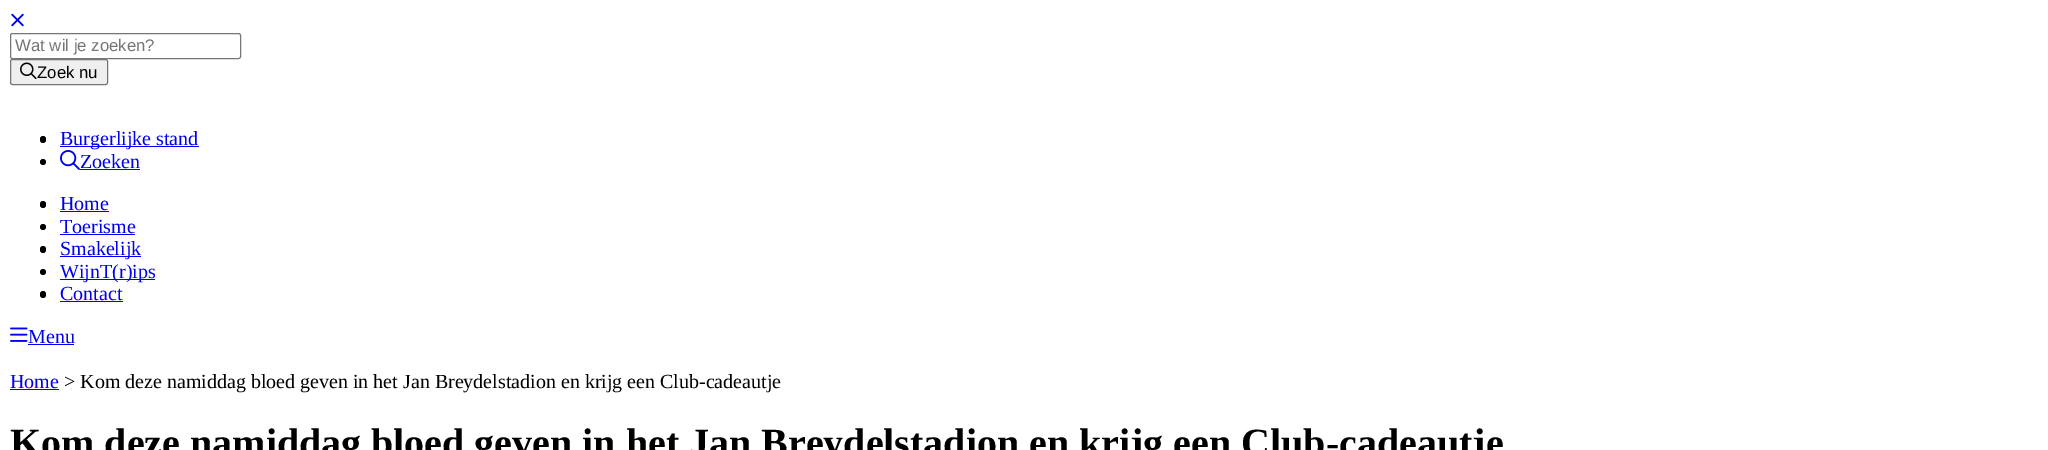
%!PS
<< /PageSize [2048 450] >> setpagedevice
/roundrect { 5 dict begin { /r /h /w /y /x } { exch def } forall
  x r add y moveto x w add y 2 copy h add r arct x w add y h add x 1 index r arct
  x y h add x y r arct x y 2 copy exch w add exch r arct closepath end } def
/picture { 5 dict begin { /h /w /y /x /name } { exch def } forall
  gsave x y translate w h scale
  w h 8 [w 0 0 h 0 0] name (r) file false 3 colorimage grestore end } def
0 450 translate 1 -1 scale
4 setmiterlimit
1 setgray
0 0 2048 450 rectfill
(img1.rgb) 11 13 13 14 picture
0.463 setgray
10.5 33.5 230 25 2 roundrect stroke
/LiberationSans-Regular [16.75 0 0 -16.75 0 0] selectfont
0.459 setgray
15 51 moveto (Wat wil je zoeken?) show
0.937 setgray
10.5 59.5 97 25 2 roundrect gsave fill grestore
0.463 setgray
stroke
(img2.rgb) 20 62 17 18 picture
0 setgray
37 78 moveto (Zoek nu) show
40 136 6 7 3 roundrect fill
0 0 0.933 setrgbcolor
60 146 139 1 rectfill
/LiberationSerif-Regular [20 0 0 -20 0 0] selectfont
60 145 moveto (Burgerlijke stand) show
0 setgray
newpath 43 162 3 0 360 arc closepath fill
(img3.rgb) 60 150 20 20 picture
0 0 0.933 setrgbcolor
80 168 moveto (Zoeken) show
80 169 60 1 rectfill
0 setgray
40 201 6 7 3 roundrect fill
0 0 0.933 setrgbcolor
60 210 moveto (Home) show
60 211 49 1 rectfill
0 setgray
newpath 43 227 3 0 360 arc closepath fill
0 0 0.933 setrgbcolor
60 233 moveto (Toerisme) show
60 234 75 1 rectfill
0 setgray
40 246 6 7 3 roundrect fill
0 0 0.933 setrgbcolor
60 256 81 1 rectfill
60 255 moveto (Smakelijk) show
0 setgray
newpath 43 272 3 0 360 arc closepath fill
0 0 0.933 setrgbcolor
60 279 95 1 rectfill
60 278 moveto (WijnT\(r\)ips) show
0 setgray
40 291 6 7 3 roundrect fill
0 0 0.933 setrgbcolor
60 300 moveto (Contact) show
60 301 63 1 rectfill
(img4.rgb) 10 327 18 15 picture
28 343 moveto (Menu) show
28 344 46 1 rectfill
10 388 moveto (Home) show
10 389 49 1 rectfill
0 setgray
64 388 moveto (> Kom deze namiddag bloed geven in het Jan Breydelstadion en krijg een Club-cadeautje) show
/LiberationSerif-Bold [40 0 0 -40 0 0] selectfont
10 456 moveto (Kom deze namiddag bloed geven in het Jan Breydelstadion en krijg een Club-cadeautje) show
showpage
